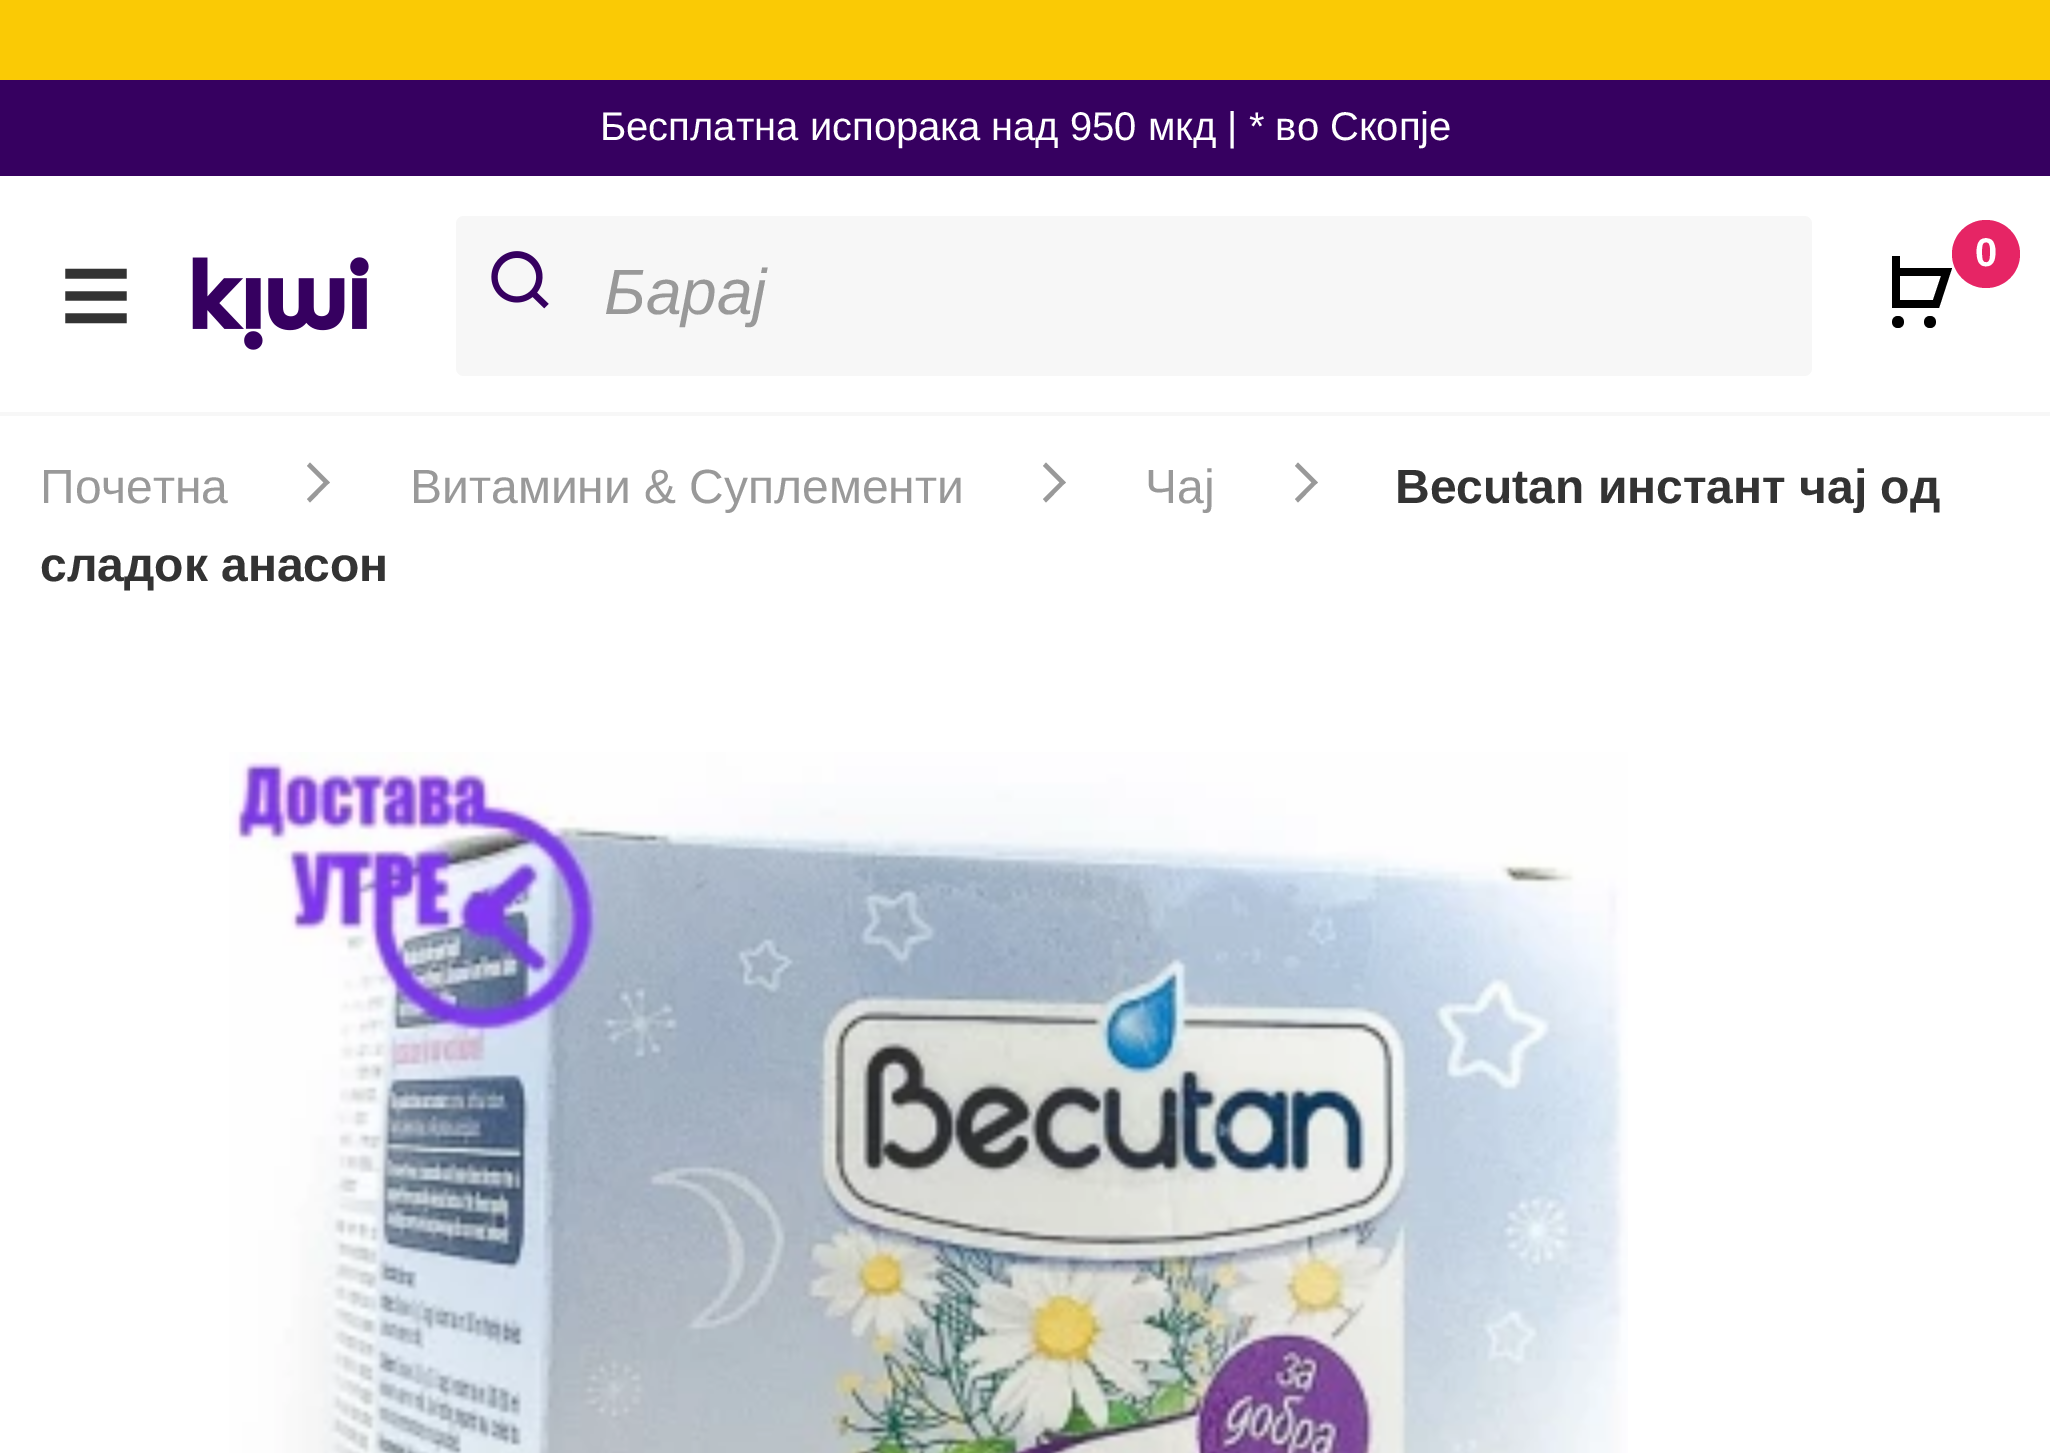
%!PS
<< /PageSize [2050 1453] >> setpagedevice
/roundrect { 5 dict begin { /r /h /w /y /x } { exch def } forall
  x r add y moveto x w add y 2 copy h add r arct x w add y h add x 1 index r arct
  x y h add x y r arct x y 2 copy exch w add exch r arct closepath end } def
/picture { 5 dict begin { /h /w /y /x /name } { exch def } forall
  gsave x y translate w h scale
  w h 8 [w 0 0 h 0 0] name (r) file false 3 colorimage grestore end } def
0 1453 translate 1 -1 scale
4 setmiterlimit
1 setgray
0 0 2050 1453 rectfill
0.98 0.792 0.02 setrgbcolor
0 0 2050 80 rectfill
0.212 0 0.376 setrgbcolor
0 80 2050 96 rectfill
/LiberationSans-Regular [40 0 0 -40 0 0] selectfont
1 setgray
600 140 moveto (Бесплатна испорака над 950 мкд | * во Скопје) show
0.969 setgray
0 412 2050 4 rectfill
0.2 setgray
newpath 125 270 moveto 125 277 lineto 67 277 lineto 67 270 lineto closepath 67 299 moveto 125 299 lineto 125 293 lineto 67 293 lineto closepath 67 322 moveto 125 322 lineto 125 315 lineto 67 315 lineto closepath fill
3.2 setlinewidth
newpath 125 270.5 moveto 125 277 lineto 67 277 lineto 67 270.5 lineto closepath 67 299 moveto 125 299 lineto 125 293 lineto 67 293 lineto closepath 67 321.5 moveto 125 321.5 lineto 125 315 lineto 67 315 lineto closepath stroke
(img1.rgb) 192 257 177 93 picture
0.969 setgray
456 216 1356 160 8 roundrect fill
(img2.rgb) 491 251 58 58 picture
/LiberationSans-Italic [64 0 0 -64 0 0] selectfont
0.6 setgray
604 314 moveto (Барај) show
0 setgray
newpath 1941 276 moveto 1900 276 lineto 1900 300 lineto 1933 300 lineto closepath 1900 268 moveto 1952 268 lineto 1939 308 lineto 1892 308 lineto 1892 256 lineto 1900 256 lineto closepath 1898 328 moveto 1890 328 1890 316 1898 316 curveto 1906 316 1906 328 1898 328 curveto closepath 1930 328 moveto 1922 328 1922 316 1930 316 curveto 1938 316 1938 328 1930 328 curveto closepath fill
0.6 setgray
newpath 326.5 485.5 moveto 310 502.5 lineto 307 499 lineto 323.5 482.5 lineto 307 466 lineto 310 462.5 lineto 330 482.5 lineto closepath fill
newpath 1062.5 485.5 moveto 1046 502.5 lineto 1043 499 lineto 1059.5 482.5 lineto 1043 466 lineto 1046 462.5 lineto 1066 482.5 lineto closepath fill
newpath 1314.5 485.5 moveto 1298 502.5 lineto 1295 499 lineto 1311.5 482.5 lineto 1295 466 lineto 1298 462.5 lineto 1318 482.5 lineto closepath fill
/LiberationSans-Bold [48 0 0 -48 0 0] selectfont
0.2 setgray
1395 503 moveto (Becutan инстант чај од) show
40 581 moveto (сладок анасон) show
/LiberationSans-Regular [48 0 0 -48 0 0] selectfont
0.6 setgray
1145 503 moveto (Чај) show
410 503 moveto (Витамини & Суплементи) show
40 503 moveto (Почетна) show
(img3.rgb) 229 752 1399 701 picture
0.902 0.145 0.396 setrgbcolor
newpath 1986 254 34 0 360 arc closepath fill
/LiberationSans-Bold [40 0 0 -40 0 0] selectfont
1 setgray
1975 266 moveto (0) show
showpage
